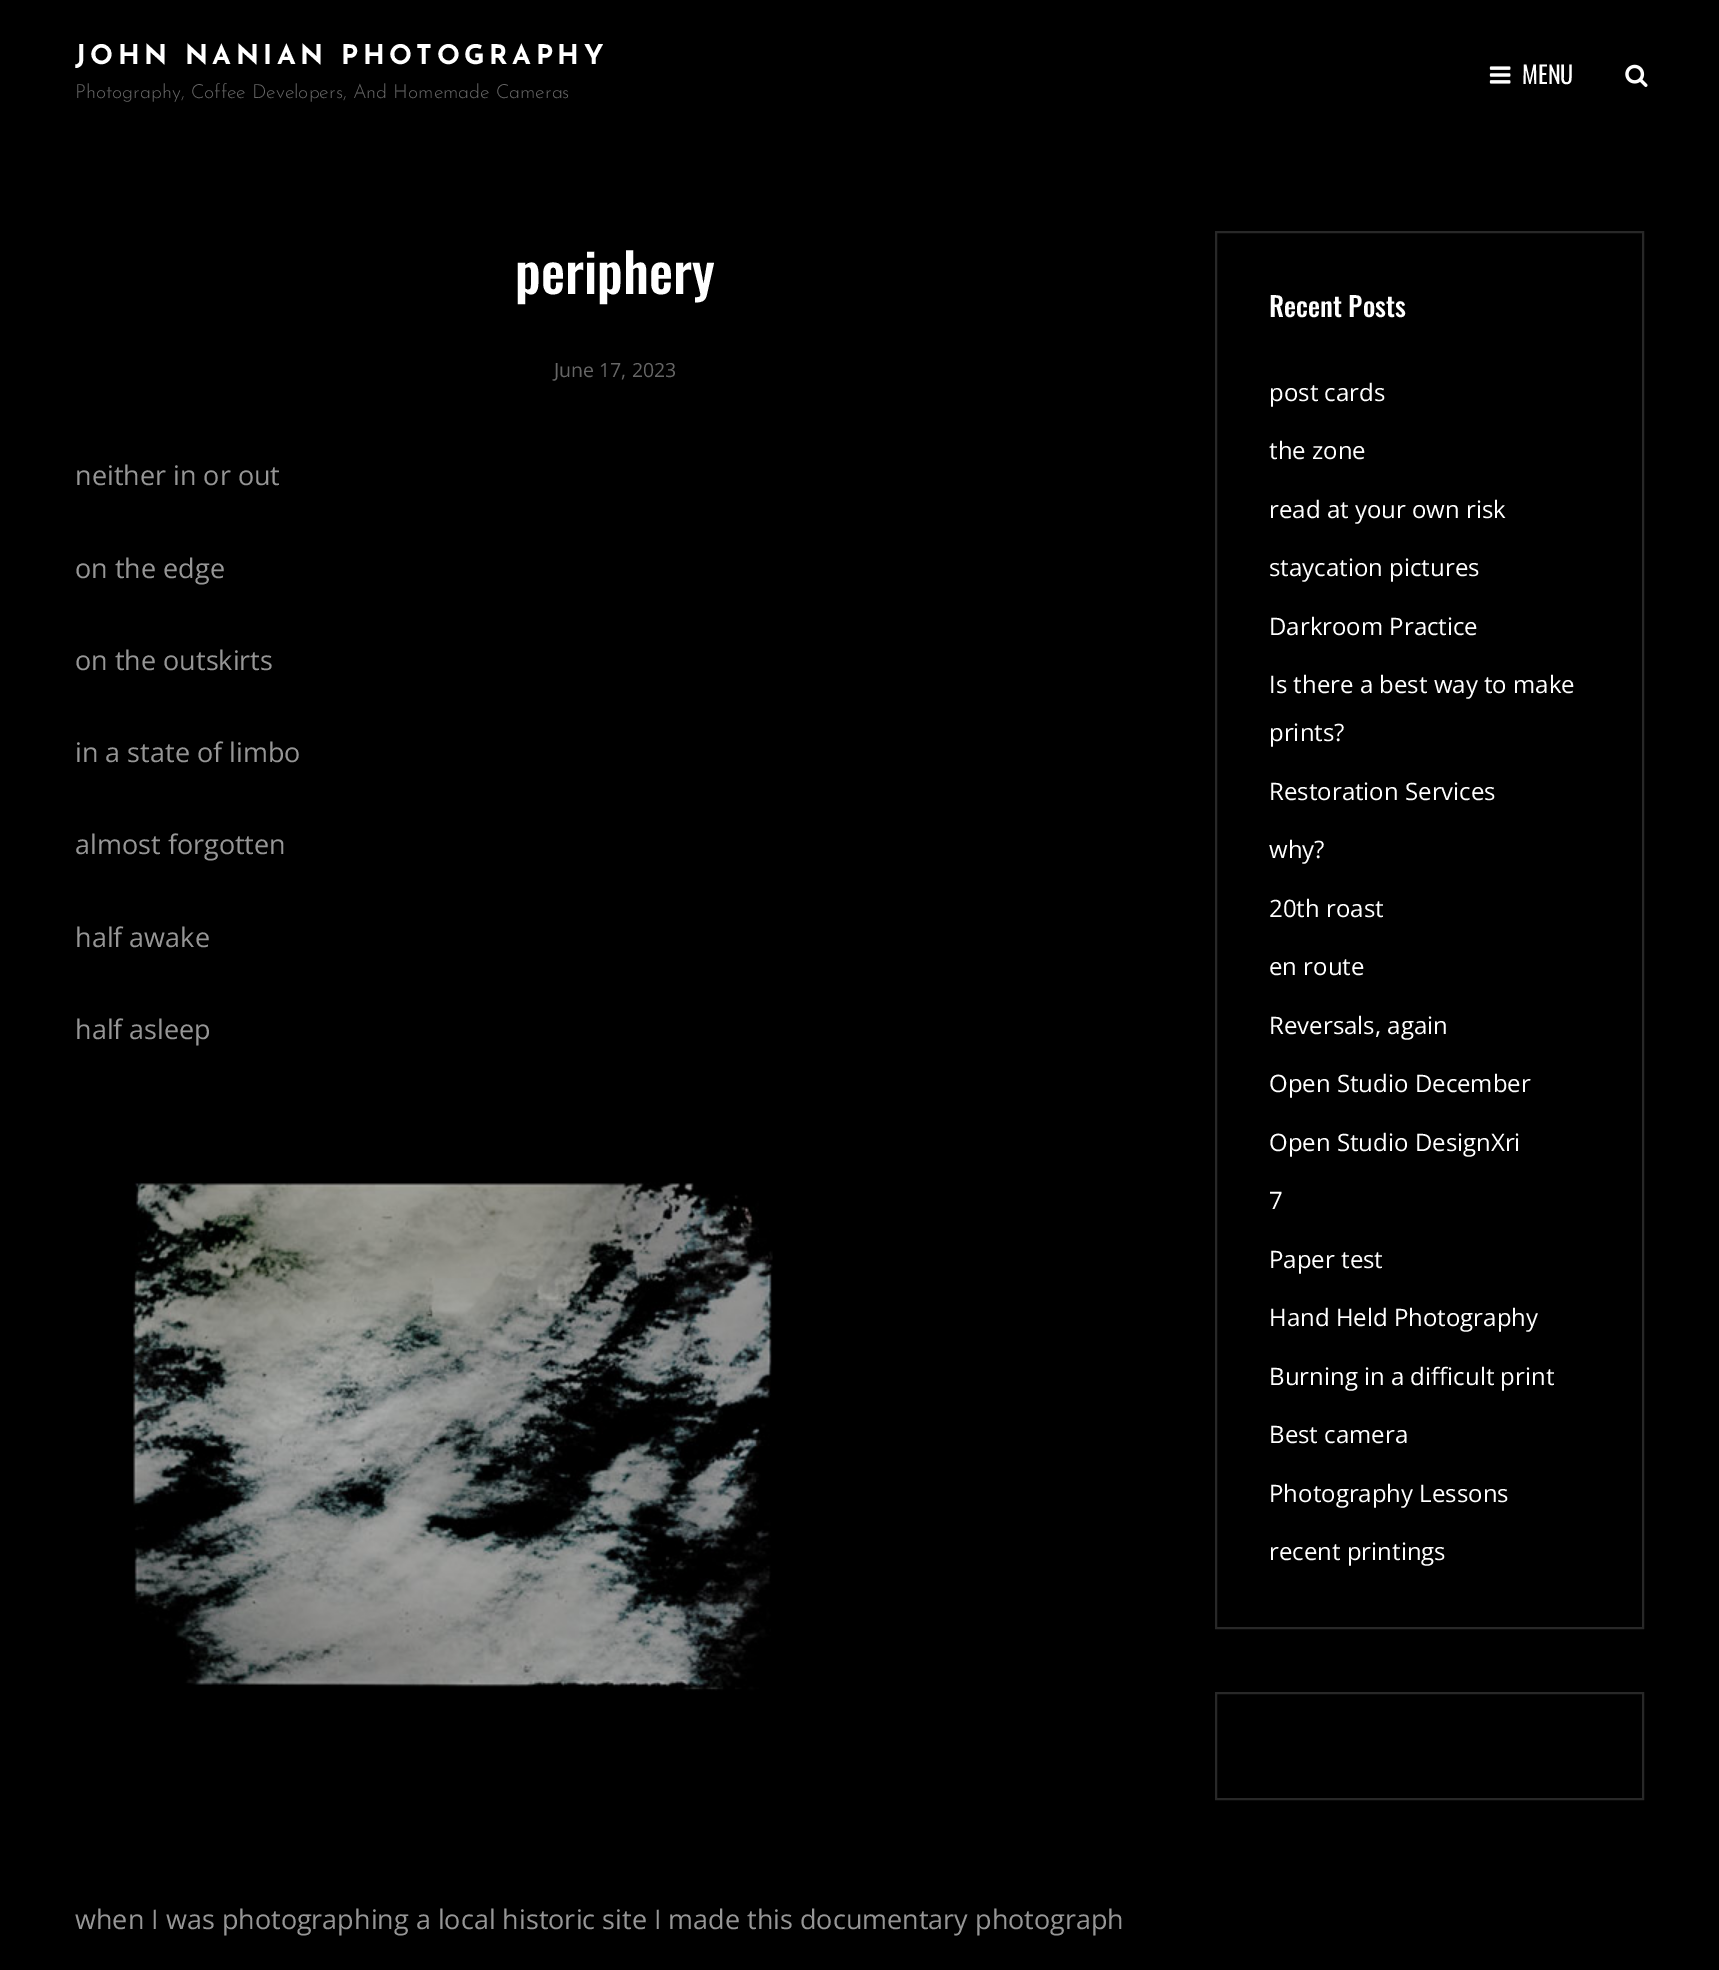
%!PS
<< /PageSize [1719 1970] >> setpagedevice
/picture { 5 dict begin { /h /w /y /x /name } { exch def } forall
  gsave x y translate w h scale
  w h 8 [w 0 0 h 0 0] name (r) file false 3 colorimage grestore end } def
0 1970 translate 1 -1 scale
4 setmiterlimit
0 setgray
0 0 1719 1970 rectfill
/JosefinSans-Bold [27 0 0 -27 0 0] selectfont
1 setgray
75 64 moveto 4.5 0 (JOHN NANIAN PHOTOGRAPHY) ashow
/JosefinSans-Light [19.5 0 0 -19.5 0 0] selectfont
0.4 setgray
75 98 moveto (Photography, Coffee Developers, And Homemade Cameras) show
(img1.rgb) 1489 66 22 18 picture
/Oswald-Regular [24 0 0 -24 0 0] selectfont
1 setgray
1522 84 moveto (MENU) show
(img2.rgb) 1625 64 23 23 picture
/Oswald-Medium [54 0 0 -54 0 0] selectfont
515 294 moveto (periphery) show
/OpenSans-Regular [19.5 0 0 -19.5 0 0] selectfont
0.4 setgray
554 377 moveto (June 17, 2023) show
/OpenSans-Regular [27 0 0 -27 0 0] selectfont
0.588 setgray
75 485 moveto (neither in or out) show
75 578 moveto (on the edge) show
75 670 moveto (on the outskirts) show
75 762 moveto (in a state of limbo) show
75 854 moveto (almost forgotten) show
75 947 moveto (half awake) show
75 1039 moveto (half asleep) show
(img3.rgb) 132 1182 641 509 picture
75 1929 moveto (when I was photographing a local historic site I made this documentary photograph) show
0.157 setgray
2 setlinewidth
1216 232 427 1396 rectstroke
/Oswald-Medium [27 0 0 -27 0 0] selectfont
1 setgray
1269 317 moveto (Recent Posts) show
/OpenSans-Regular [24 0 0 -24 0 0] selectfont
1269 401 moveto (post cards) show
1269 459 moveto (the zone) show
1269 518 moveto (read at your own risk) show
1269 576 moveto (staycation pictures) show
1269 635 moveto (Darkroom Practice) show
1269 693 moveto (Is there a best way to make) show
1269 741 moveto (prints?) show
1269 800 moveto (Restoration Services) show
1269 858 moveto (why?) show
1269 917 moveto (20th roast) show
1269 975 moveto (en route) show
1269 1034 moveto (Reversals, again) show
1269 1092 moveto (Open Studio December) show
1269 1151 moveto (Open Studio DesignXri) show
1269 1209 moveto (7) show
1269 1268 moveto (Paper test) show
1269 1326 moveto (Hand Held Photography) show
1269 1385 moveto (Burning in a difficult print) show
1269 1443 moveto (Best camera) show
1269 1502 moveto (Photography Lessons) show
1269 1560 moveto (recent printings) show
0.157 setgray
1216 1693 427 106 rectstroke
showpage
